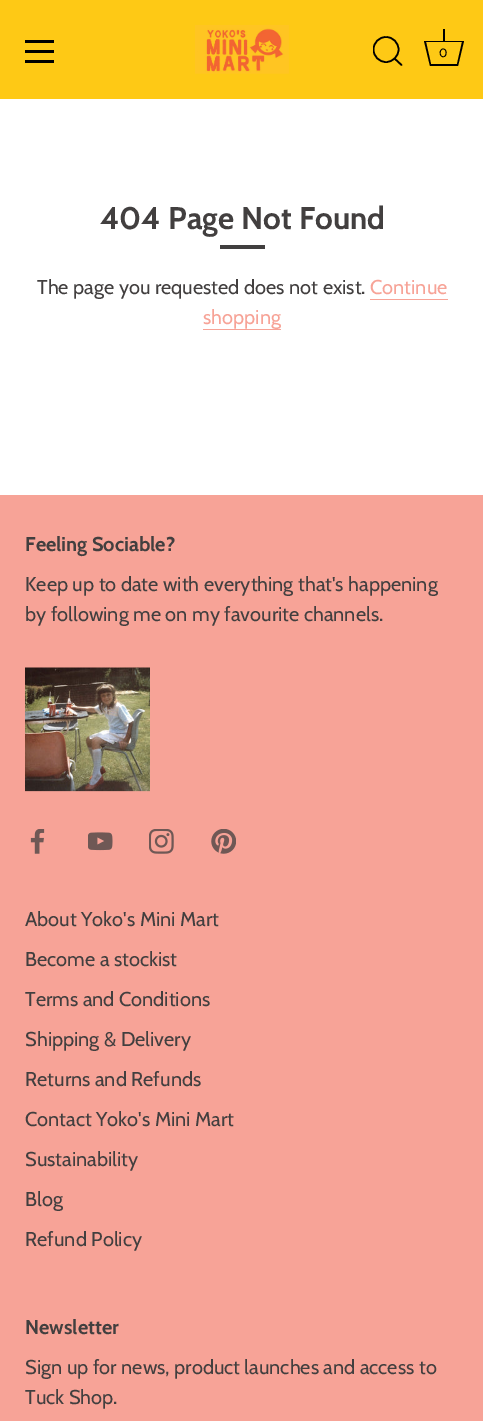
%!PS
<< /PageSize [483 1421] >> setpagedevice
/picture { 5 dict begin { /h /w /y /x /name } { exch def } forall
  gsave x y translate w h scale
  w h 8 [w 0 0 h 0 0] name (r) file false 3 colorimage grestore end } def
0 1421 translate 1 -1 scale
4 setmiterlimit
1 setgray
0 0 483 1421 rectfill
0.996 0.788 0.082 setrgbcolor
0 0 483 99 rectfill
0 setgray
25 40 29 3 rectfill
25 50 29 3 rectfill
25 60 29 3 rectfill
(img1.rgb) 195 25 94 49 picture
gsave
373 36 30 30 rectclip
1.6 setlinewidth
newpath 386 49.5 12.5 0 360 arc closepath stroke
grestore
1.6 setlinewidth
1 setlinecap
1 setlinejoin
newpath 401.5 65 moveto 394.5 58.5 lineto stroke
443 29 2 12 rectfill
newpath 462 42 moveto 457 64 lineto 431 64 lineto 426 42 lineto 462 42 lineto 464 41 moveto 424 41 lineto 430 66 lineto 458 66 lineto closepath fill
/Cabin-Regular [12 0 0 -12 0 0] selectfont
439 57 moveto (0) show
/Cabin-Bold [31.25 0 0 -31.25 0 0] selectfont
0.259 0.247 0.247 setrgbcolor
100 229 moveto (404 Page Not Found) show
0.255 0.247 0.247 setrgbcolor
220 245 45 4 rectfill
/Cabin-Regular [20 0 0 -20 0 0] selectfont
0.259 0.247 0.247 setrgbcolor
37 294 moveto (The page you requested does not exist.) show
0.969 0.639 0.592 setrgbcolor
370 294 moveto (Continue) show
370 299 78 1 rectfill
203 324 moveto (shopping) show
203 329 78 1 rectfill
0 495 483 926 rectfill
/Cabin-Bold [20 0 0 -20 0 0] selectfont
0.259 0.247 0.247 setrgbcolor
25 551 moveto (Feeling Sociable?) show
/Cabin-Regular [20 0 0 -20 0 0] selectfont
25 591 moveto (Keep up to date with everything that's happening) show
25 621 moveto (by following me on my favourite channels.) show
(img2.rgb) 25 667 125 125 picture
(img3.rgb) 30 829 15 25 picture
(img4.rgb) 88 832 25 19 picture
(img5.rgb) 149 829 25 25 picture
(img6.rgb) 211 829 25 25 picture
25 926 moveto (About Yoko's Mini Mart) show
25 966 moveto (Become a stockist) show
25 1006 moveto (Terms and Conditions) show
25 1046 moveto (Shipping & Delivery) show
25 1086 moveto (Returns and Refunds) show
25 1126 moveto (Contact Yoko's Mini Mart) show
25 1166 moveto (Sustainability) show
25 1206 moveto (Blog) show
25 1246 moveto (Refund Policy) show
/Cabin-Bold [20 0 0 -20 0 0] selectfont
25 1334 moveto (Newsletter) show
/Cabin-Regular [20 0 0 -20 0 0] selectfont
25 1374 moveto (Sign up for news, product launches and access to) show
25 1404 moveto (Tuck Shop.) show
showpage
